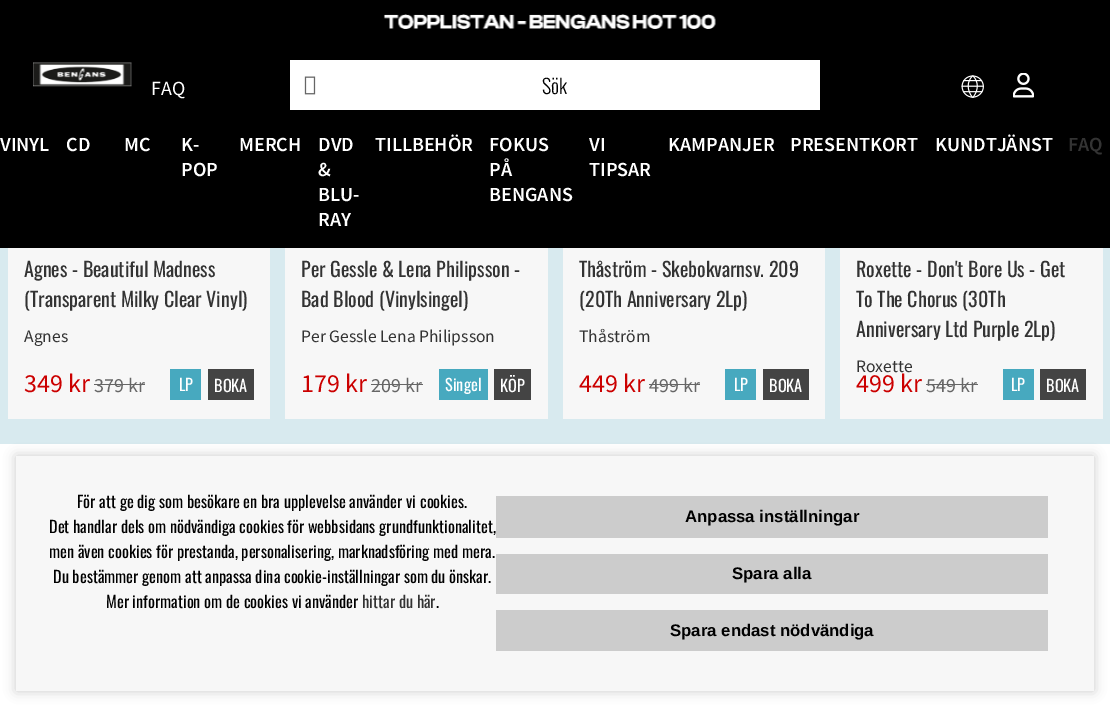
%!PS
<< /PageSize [1110 707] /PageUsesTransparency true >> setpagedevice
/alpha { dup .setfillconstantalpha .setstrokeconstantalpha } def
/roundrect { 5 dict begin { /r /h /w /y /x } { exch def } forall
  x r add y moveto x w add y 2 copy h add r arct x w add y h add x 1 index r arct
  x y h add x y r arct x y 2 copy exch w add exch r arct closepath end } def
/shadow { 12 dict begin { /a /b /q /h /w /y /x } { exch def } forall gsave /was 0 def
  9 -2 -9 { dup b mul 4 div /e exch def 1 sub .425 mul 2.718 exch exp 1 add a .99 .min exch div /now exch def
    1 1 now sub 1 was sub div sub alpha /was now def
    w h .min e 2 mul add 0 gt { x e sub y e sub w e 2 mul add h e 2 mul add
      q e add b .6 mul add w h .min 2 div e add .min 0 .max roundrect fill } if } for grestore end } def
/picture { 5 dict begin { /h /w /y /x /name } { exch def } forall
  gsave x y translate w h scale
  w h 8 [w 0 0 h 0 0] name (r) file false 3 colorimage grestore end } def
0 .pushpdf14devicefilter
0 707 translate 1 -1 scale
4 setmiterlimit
1 setgray
0 0 1110 707 rectfill
0 setgray
0 0 1110 248 rectfill
(img1.rgb) 383 14 333 15 picture
(img2.rgb) 33 62 99 25 picture
/SourceSansPro-Regular [20 0 0 -20 0 0] selectfont
1 setgray
151 95 moveto (FAQ) show
290 60 530 50 rectfill
(img3.rgb) 304 76 12 19 picture
/Oswald-Light [20 0 0 -20 0 0] selectfont
0 setgray
542 94 moveto (Sök) show
(img4.rgb) 961 75 23 23 picture
(img5.rgb) 1013 73 21 25 picture
/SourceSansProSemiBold-SemiBold [20 0 0 -20 0 0] selectfont
1 setgray
0 151 moveto (VINYL) show
66 151 moveto (CD) show
124 151 moveto (MC) show
181 151 moveto (K-) show
181 176 moveto (POP) show
239 151 moveto (MERCH) show
318 151 moveto (DVD) show
318 176 moveto (&) show
318 201 moveto (BLU-) show
318 226 moveto (RAY) show
375 151 moveto (TILLBEHÖR) show
489 151 moveto (FOKUS) show
489 176 moveto (PÅ) show
489 201 moveto (BENGANS) show
589 151 moveto (VI) show
589 176 moveto (TIPSAR) show
668 151 moveto (KAMPANJER) show
790 151 moveto (PRESENTKORT) show
935 151 moveto (KUNDTJÄNST) show
0.2 setgray
1068 151 moveto (FAQ) show
0.847 0.918 0.937 setrgbcolor
0 248 1110 196 rectfill
0.969 setgray
8 248 262 171 rectfill
/Oswald-Regular [20 0 0 -20 0 0] selectfont
0.2 setgray
24 277 moveto (Agnes - Beautiful Madness) show
24 307 moveto (\(Transparent Milky Clear Vinyl\)) show
/SourceSansPro-Regular [17.5 0 0 -17.5 0 0] selectfont
24 342 moveto (Agnes) show
/SourceSansPro-Regular [26 0 0 -26 0 0] selectfont
0.796 0 0 setrgbcolor
24 392 moveto (349 kr) show
/SourceSansPro-Regular [20 0 0 -20 0 0] selectfont
0.4 setgray
94 392 moveto (379 kr) show
94 384 51 1 rectfill
0.278 0.663 0.749 setrgbcolor
170 369 31 31 rectfill
/Oswald-Regular [16.25 0 0 -16.25 0 0] selectfont
1 setgray
179 391 moveto (LP) show
0.267 setgray
208 369 46 31 rectfill
1 setgray
214 392 moveto (BOKA) show
0.969 setgray
285 248 263 171 rectfill
/Oswald-Regular [20 0 0 -20 0 0] selectfont
0.2 setgray
301 277 moveto (Per Gessle & Lena Philipsson -) show
301 307 moveto (Bad Blood \(Vinylsingel\)) show
/SourceSansPro-Regular [17.5 0 0 -17.5 0 0] selectfont
301 342 moveto (Per Gessle Lena Philipsson) show
/SourceSansPro-Regular [26 0 0 -26 0 0] selectfont
0.796 0 0 setrgbcolor
301 392 moveto (179 kr) show
/SourceSansPro-Regular [20 0 0 -20 0 0] selectfont
0.4 setgray
371 392 moveto (209 kr) show
371 384 52 1 rectfill
0.278 0.663 0.749 setrgbcolor
439 369 49 31 rectfill
/Oswald-Regular [16.25 0 0 -16.25 0 0] selectfont
1 setgray
445 391 moveto (Singel) show
0.267 setgray
494 369 37 31 rectfill
1 setgray
500 392 moveto (KÖP) show
0.969 setgray
563 248 262 171 rectfill
/Oswald-Regular [20 0 0 -20 0 0] selectfont
0.2 setgray
579 277 moveto (Thåström - Skebokvarnsv. 209) show
579 307 moveto (\(20Th Anniversary 2Lp\)) show
/SourceSansPro-Regular [17.5 0 0 -17.5 0 0] selectfont
579 342 moveto (Thåström) show
/SourceSansPro-Regular [26 0 0 -26 0 0] selectfont
0.796 0 0 setrgbcolor
579 392 moveto (449 kr) show
/SourceSansPro-Regular [20 0 0 -20 0 0] selectfont
0.4 setgray
649 392 moveto (499 kr) show
649 384 51 1 rectfill
0.278 0.663 0.749 setrgbcolor
725 369 31 31 rectfill
/Oswald-Regular [16.25 0 0 -16.25 0 0] selectfont
1 setgray
734 391 moveto (LP) show
0.267 setgray
763 369 46 31 rectfill
1 setgray
769 392 moveto (BOKA) show
0.969 setgray
840 248 263 171 rectfill
/Oswald-Regular [20 0 0 -20 0 0] selectfont
0.2 setgray
856 277 moveto (Roxette - Don't Bore Us - Get) show
856 307 moveto (To The Chorus \(30Th) show
856 337 moveto (Anniversary Ltd Purple 2Lp\)) show
/SourceSansPro-Regular [17.5 0 0 -17.5 0 0] selectfont
856 372 moveto (Roxette) show
/SourceSansPro-Regular [26 0 0 -26 0 0] selectfont
0.796 0 0 setrgbcolor
856 392 moveto (499 kr) show
/SourceSansPro-Regular [20 0 0 -20 0 0] selectfont
0.4 setgray
926 392 moveto (549 kr) show
926 384 52 1 rectfill
0.278 0.663 0.749 setrgbcolor
1003 369 31 31 rectfill
/Oswald-Regular [16.25 0 0 -16.25 0 0] selectfont
1 setgray
1011 391 moveto (LP) show
0.267 setgray
1040 369 46 31 rectfill
1 setgray
1046 392 moveto (BOKA) show
0 setgray
16 456 1078 235 0 6 0.2 shadow
0.969 setgray
16 456 1078 235 rectfill
0 setgray
77 508 moveto (För att ge dig som besökare en bra upplevelse använder vi cookies.) show
49 533 moveto (Det handlar dels om nödvändiga cookies för webbsidans grundfunktionalitet,) show
49 558 moveto (men även cookies för prestanda, personalisering, marknadsföring med mera.) show
53 583 moveto (Du bestämmer genom att anpassa dina cookie-inställningar som du önskar.) show
106 608 moveto (Mer information om de cookies vi använder) show
0.2 setgray
362 608 moveto (hittar du här) show
0 setgray
436 608 moveto (.) show
0.8 setgray
496 496 552 42 rectfill
/LiberationSans-Bold [16.75 0 0 -16.75 0 0] selectfont
0 setgray
685 522 moveto (Anpassa inställningar) show
0.8 setgray
496 554 552 40 rectfill
0 setgray
732 579 moveto (Spara alla) show
0.8 setgray
496 610 552 41 rectfill
0 setgray
670 636 moveto (Spara endast nödvändiga) show
.poppdf14devicefilter showpage
